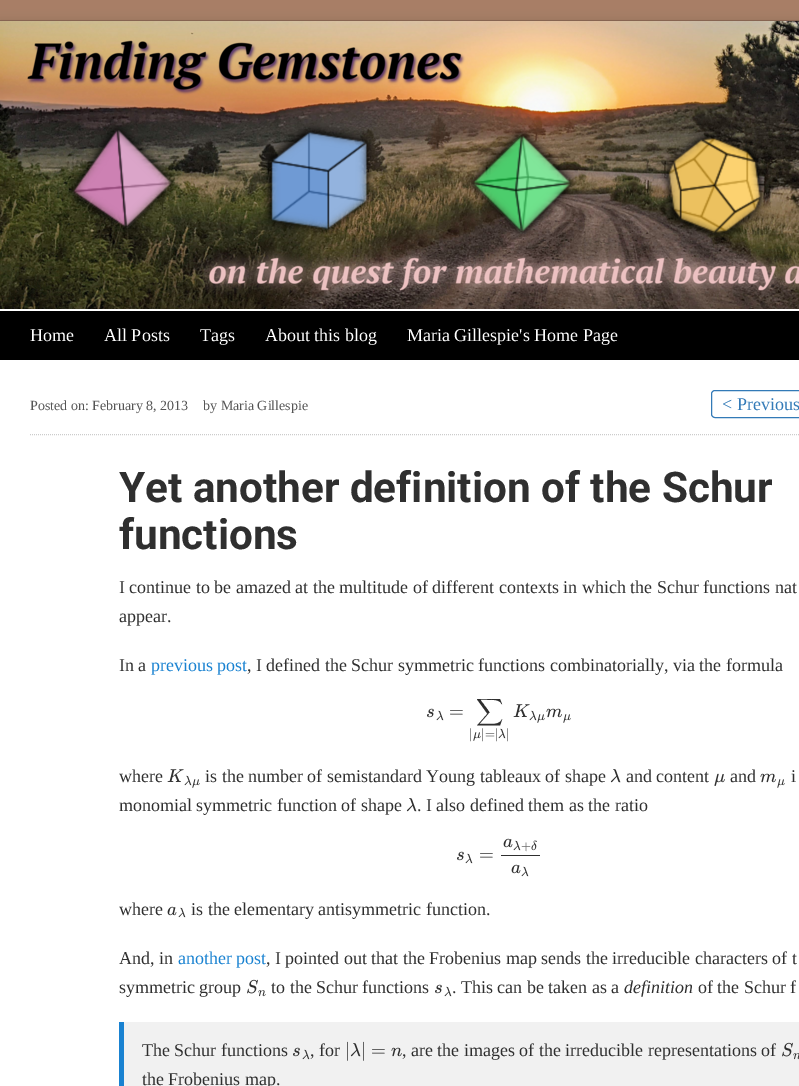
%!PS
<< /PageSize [799 1086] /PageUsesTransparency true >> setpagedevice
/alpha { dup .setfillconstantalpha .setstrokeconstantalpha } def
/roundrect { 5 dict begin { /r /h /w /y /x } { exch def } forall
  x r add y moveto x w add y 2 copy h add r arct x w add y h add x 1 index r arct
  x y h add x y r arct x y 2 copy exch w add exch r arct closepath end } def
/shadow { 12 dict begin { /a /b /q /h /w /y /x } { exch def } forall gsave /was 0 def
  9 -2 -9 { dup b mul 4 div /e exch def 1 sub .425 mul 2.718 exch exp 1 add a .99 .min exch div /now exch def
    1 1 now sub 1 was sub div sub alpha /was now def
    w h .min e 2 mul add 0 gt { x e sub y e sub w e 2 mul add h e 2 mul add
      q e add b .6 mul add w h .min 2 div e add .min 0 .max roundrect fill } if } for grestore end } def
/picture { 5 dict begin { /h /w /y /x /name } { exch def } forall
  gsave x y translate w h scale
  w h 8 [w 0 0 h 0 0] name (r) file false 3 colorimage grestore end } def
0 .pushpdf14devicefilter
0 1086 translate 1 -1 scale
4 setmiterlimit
0.659 0.494 0.4 setrgbcolor
0 0 799 1086 rectfill
0 setgray
0 20 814 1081 0 5 0.1 shadow
1 setgray
0 309 799 777 rectfill
0.525 0.392 0.318 setrgbcolor
0 20 799 1 rectfill
(img1.rgb) 0 21 799 288 picture
0 setgray
0 311 799 49 rectfill
/LiberationSerif-Regular [18 0 0 -18 0 0] selectfont
1 setgray
30 341 moveto (Home) show
104 341 moveto (All Posts) show
200 341 moveto (Tags) show
265 341 moveto (About this blog) show
407 341 moveto (Maria Gillespie's Home Page) show
0.8 setgray
[1 1] 0 setdash
newpath 30 434.5 moveto 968 434.5 lineto stroke
/LiberationSerif-Regular [14 0 0 -14 0 0] selectfont
0.333 setgray
30 410 moveto (Posted on: February 8, 2013) show
203 410 moveto (by Maria Gillespie) show
0.2 0.478 0.718 setrgbcolor
[] 0 setdash
711.5 390.5 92 27 3.5 roundrect stroke
/LiberationSerif-Regular [18 0 0 -18 0 0] selectfont
722 410 moveto (< Previous) show
/Roboto-Bold [42.25 0 0 -42.25 0 0] selectfont
0.184 setgray
119 502 moveto (Yet another definition of the Schur) show
119 549 moveto (functions) show
/LiberationSerif-Regular [18 0 0 -18 0 0] selectfont
119 593 moveto (I continue to be amazed at the multitude of different contexts in which the Schur functions nat) show
119 622 moveto (appear.) show
119 671 moveto (In a) show
0.098 0.51 0.82 setrgbcolor
151 671 moveto (previous post) show
0.184 setgray
247 671 moveto (, I defined the Schur symmetric functions combinatorially, via the formula) show
(img2.rgb) 427 708 7 10 picture
(img3.rgb) 436 710 8 11 picture
/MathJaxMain-Regular [19 0 0 -19 0 0] selectfont
449 717 moveto (=) show
/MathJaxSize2-Regular [19 0 0 -19 0 0] selectfont
476 717 moveto (∑) show
/MathJaxMain-Regular [13 0 0 -13 0 0] selectfont
469 738 moveto (|) show
(img4.rgb) 473 732 8 9 picture
481 738 moveto (|=|) show
(img3.rgb) 498 728 8 11 picture
506 738 moveto (|) show
(img5.rgb) 513 704 17 13 picture
(img3.rgb) 529 710 8 11 picture
(img4.rgb) 537 714 8 9 picture
(img6.rgb) 546 708 16 10 picture
(img4.rgb) 563 714 8 9 picture
/LiberationSerif-Regular [18 0 0 -18 0 0] selectfont
119 782 moveto (where) show
(img5.rgb) 167 769 17 13 picture
(img3.rgb) 184 775 8 11 picture
(img4.rgb) 192 779 8 9 picture
205 782 moveto (is the number of semistandard Young tableaux of shape) show
(img7.rgb) 610 769 11 14 picture
626 782 moveto (and content) show
(img8.rgb) 714 773 11 13 picture
730 782 moveto (and) show
(img6.rgb) 760 773 16 10 picture
(img4.rgb) 777 779 8 9 picture
791 782 moveto (i) show
119 811 moveto (monomial symmetric function of shape) show
(img7.rgb) 406 798 11 14 picture
417 811 moveto (. I also defined them as the ratio) show
(img9.rgb) 503 838 10 10 picture
(img3.rgb) 513 840 8 11 picture
/MathJaxMain-Regular [13 0 0 -13 0 0] selectfont
521 850 moveto (+) show
(img10.rgb) 531 840 6 11 picture
501 855 39 1 rectfill
(img9.rgb) 511 864 10 10 picture
(img3.rgb) 521 866 8 11 picture
(img2.rgb) 457 851 7 10 picture
(img3.rgb) 465 853 8 11 picture
/MathJaxMain-Regular [19 0 0 -19 0 0] selectfont
479 860 moveto (=) show
/LiberationSerif-Regular [18 0 0 -18 0 0] selectfont
119 915 moveto (where) show
(img9.rgb) 167 906 10 10 picture
(img3.rgb) 178 907 8 11 picture
191 915 moveto (is the elementary antisymmetric function.) show
119 964 moveto (And, in) show
0.098 0.51 0.82 setrgbcolor
178 964 moveto (another post) show
0.184 setgray
266 964 moveto (, I pointed out that the Frobenius map sends the irreducible characters of t) show
119 993 moveto (symmetric group) show
(img11.rgb) 247 979 11 15 picture
(img12.rgb) 258 990 8 7 picture
271 993 moveto (to the Schur functions) show
(img2.rgb) 435 984 7 10 picture
(img3.rgb) 444 986 8 11 picture
452 993 moveto (. This can be taken as a) show
/LiberationSerif-Italic [18 0 0 -18 0 0] selectfont
624 993 moveto (definition) show
/LiberationSerif-Regular [18 0 0 -18 0 0] selectfont
698 993 moveto (of the Schur f) show
0.945 setgray
124 1022 675 64 rectfill
0.098 0.51 0.82 setrgbcolor
119 1022 5 64 rectfill
0.184 setgray
142 1056 moveto (The Schur functions) show
(img13.rgb) 293 1047 7 10 picture
(img14.rgb) 302 1049 8 11 picture
310 1056 moveto (, for) show
/MathJaxMain-Regular [19 0 0 -19 0 0] selectfont
345 1056 moveto (|) show
(img15.rgb) 350 1043 11 14 picture
361 1056 moveto (|) show
371 1056 moveto (=) show
(img16.rgb) 391 1047 11 10 picture
/LiberationSerif-Regular [18 0 0 -18 0 0] selectfont
402 1056 moveto (, are the images of the irreducible representations of) show
(img17.rgb) 782 1042 11 15 picture
(img18.rgb) 793 1053 6 7 picture
142 1085 moveto (the Frobenius map.) show
.poppdf14devicefilter showpage
